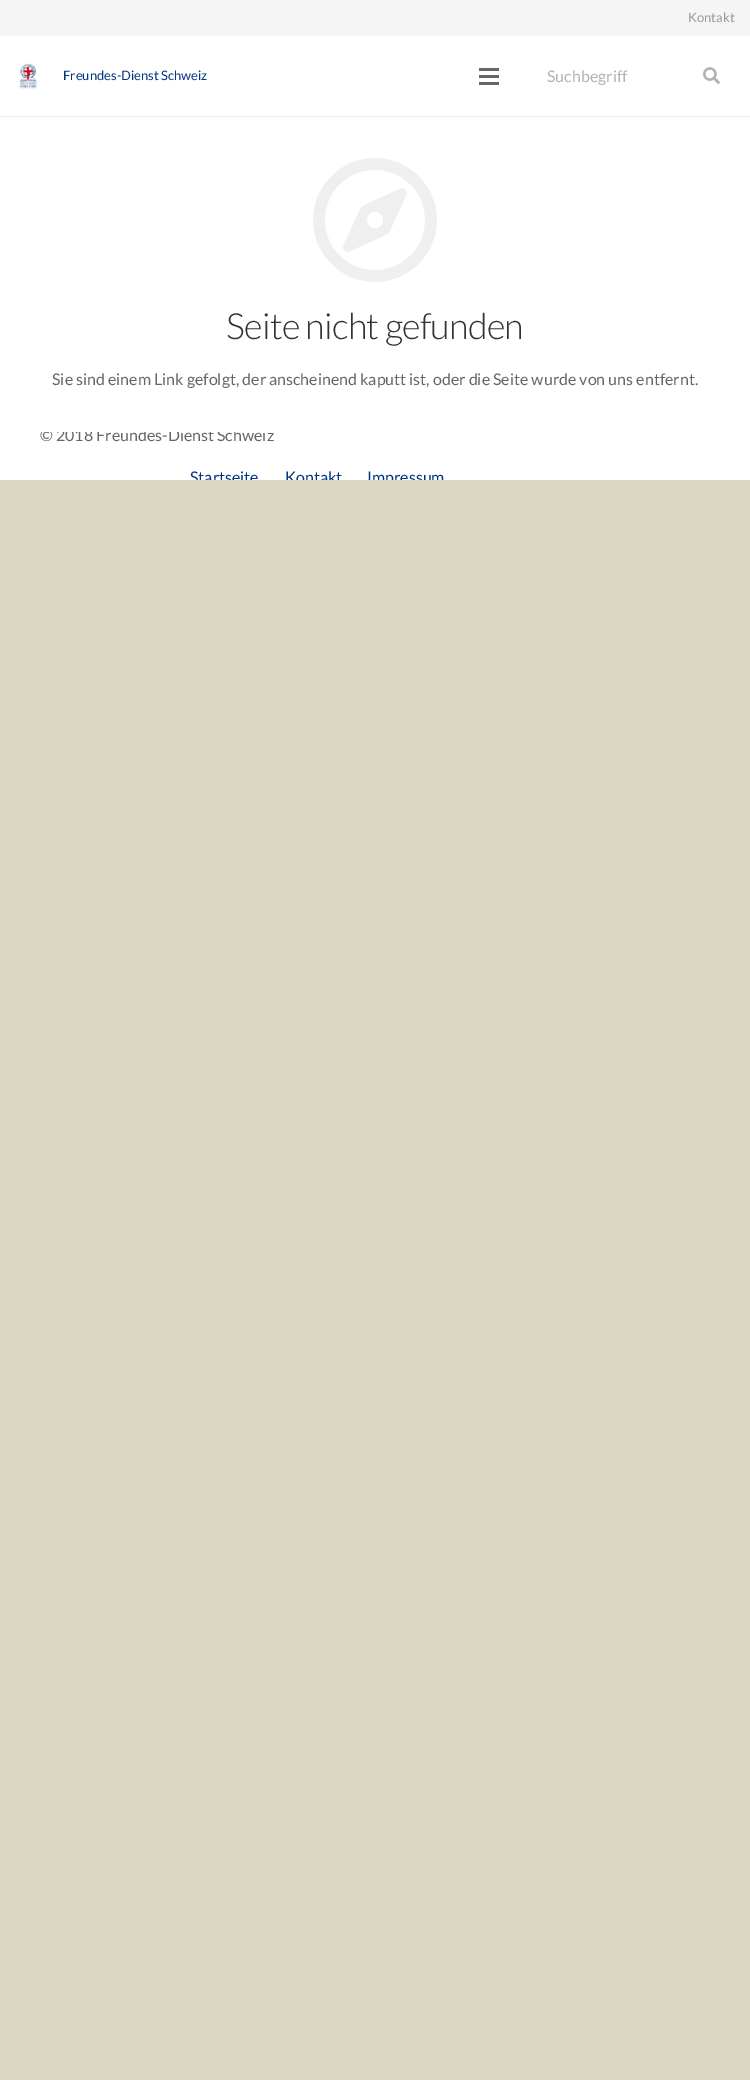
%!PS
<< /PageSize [750 2080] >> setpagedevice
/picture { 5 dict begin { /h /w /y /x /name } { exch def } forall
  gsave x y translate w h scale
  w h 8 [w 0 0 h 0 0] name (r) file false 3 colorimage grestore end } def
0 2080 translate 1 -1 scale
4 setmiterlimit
0.851 0.839 0.757 setrgbcolor
0 0 750 2080 rectfill
1 setgray
0 36 750 444 rectfill
0.961 setgray
0 0 750 36 rectfill
/Lato-Regular [13 0 0 -13 0 0] selectfont
0.6 setgray
688 22 moveto (Kontakt) show
0.922 setgray
0 116 750 1 rectfill
(img1.rgb) 19 63 18 26 picture
0 0.2 0.502 setrgbcolor
63 80 moveto (Freundes-Dienst Schweiz) show
0.4 setgray
479 75 20 3 rectfill
479 68 20 3 rectfill
479 82 20 3 rectfill
/Lato-Regular [16 0 0 -16 0 0] selectfont
0.702 setgray
547 82 moveto (Suchbegriff) show
(img2.rgb) 703 67 17 17 picture
(img3.rgb) 313 158 124 124 picture
/Lato-Light [36 0 0 -36 0 0] selectfont
0.2 setgray
226 339 moveto -0.75 0 (Seite nicht gefunden) ashow
/Lato-Regular [16 0 0 -16 0 0] selectfont
0.4 setgray
52 385 moveto (Sie sind einem Link gefolgt, der anscheinend kaputt ist, oder die Seite wurde von uns entfernt.) show
gsave
0 432 750 48 rectclip
40 441 moveto (© 2018 Freundes-Dienst Schweiz) show
0 0.2 0.502 setrgbcolor
190 483 moveto (Startseite) show
285 483 moveto (Kontakt) show
367 483 moveto (Impressum) show
grestore
showpage
